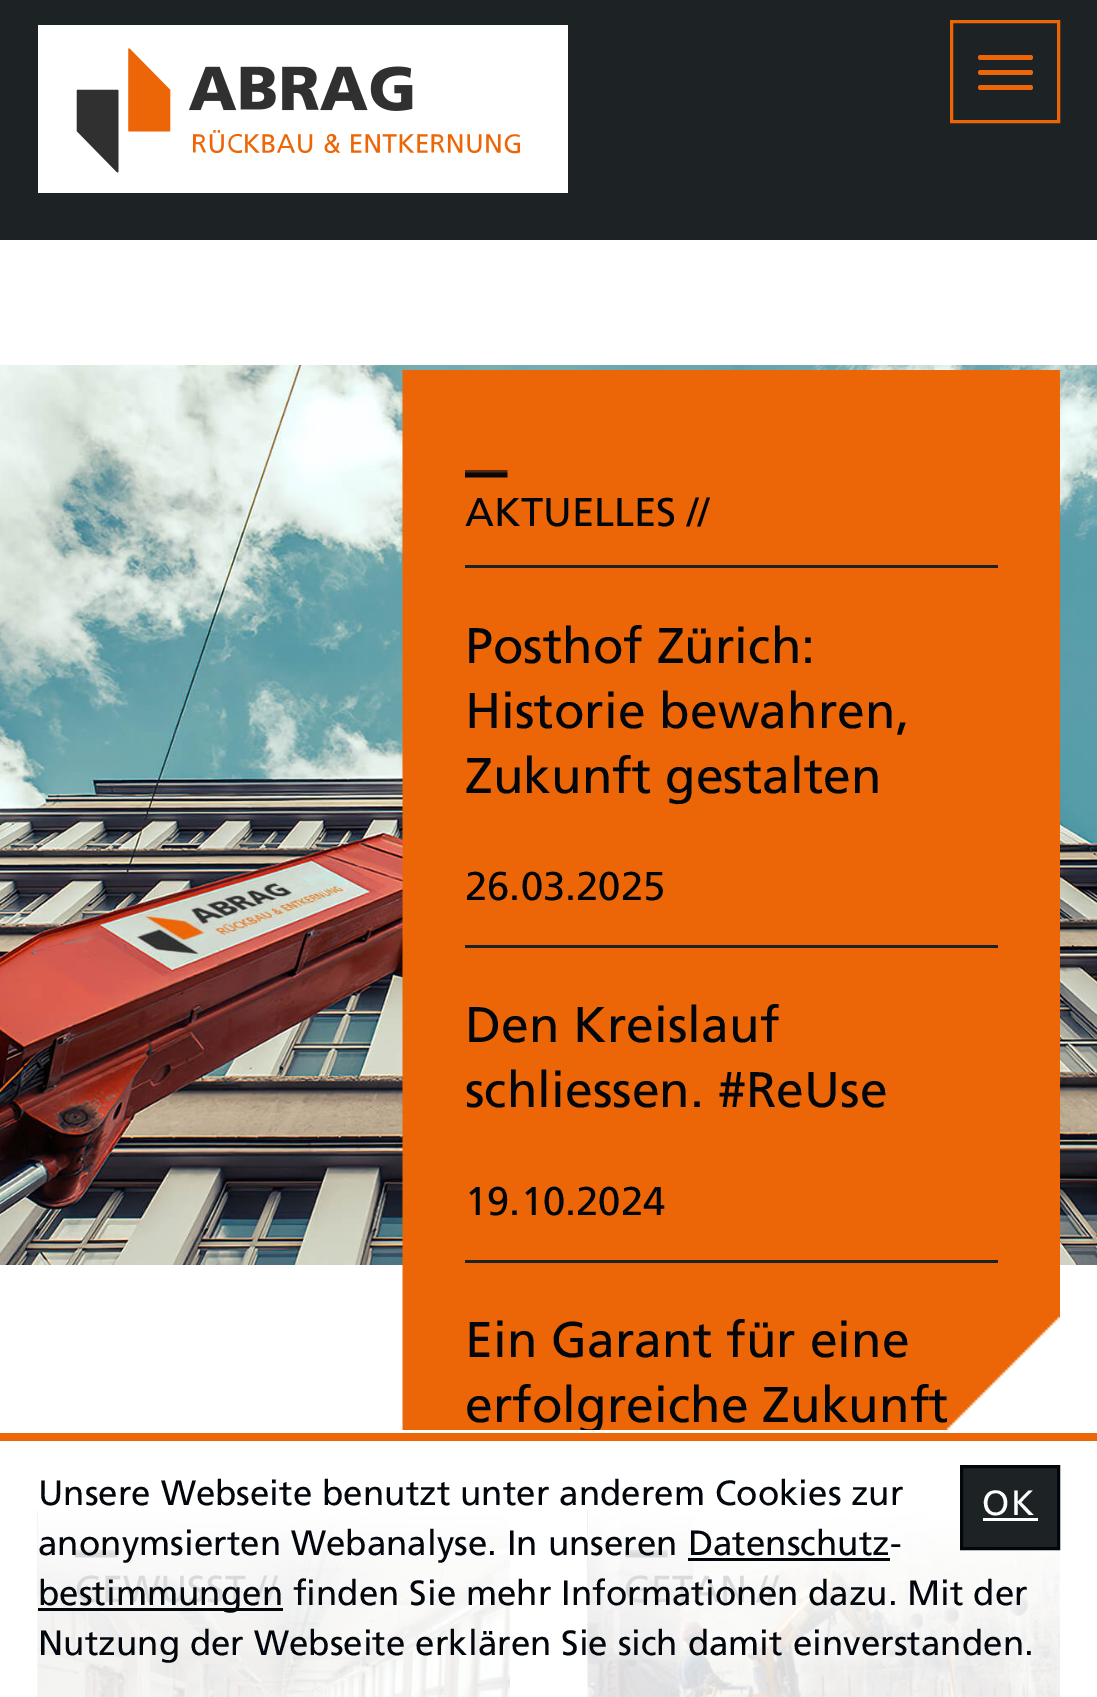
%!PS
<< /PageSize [1097 1697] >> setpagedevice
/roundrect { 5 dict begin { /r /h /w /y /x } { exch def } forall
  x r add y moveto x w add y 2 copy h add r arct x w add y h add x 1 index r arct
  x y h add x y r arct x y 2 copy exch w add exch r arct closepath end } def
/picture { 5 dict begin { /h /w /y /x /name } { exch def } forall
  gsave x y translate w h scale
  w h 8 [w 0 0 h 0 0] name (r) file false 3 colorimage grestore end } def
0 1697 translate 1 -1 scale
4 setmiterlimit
1 setgray
0 0 1097 1697 rectfill
0.114 0.133 0.141 setrgbcolor
0 0 1097 240 rectfill
1 setgray
38 25 530 168 rectfill
(img1.rgb) 76 48 445 125 picture
0.925 0.4 0.031 setrgbcolor
3 setlinewidth
951.5 21.5 107 100 rectstroke
978 55 55 5 2.5 roundrect fill
978 70 55 5 2.5 roundrect fill
978 85 55 5 2.5 roundrect fill
(img2.rgb) 0 365 1097 900 picture
(img3.rgb) 402 370 658 1060 picture
(img4.rgb) 465 470 43 8 picture
/Frutiger-Regular [40 0 0 -40 0 0] selectfont
0.008 0.024 0.051 setrgbcolor
465 526 moveto (AKTUELLES //) show
0.114 0.133 0.141 setrgbcolor
465 565 533 3 rectfill
/Frutiger-Regular [50 0 0 -50 0 0] selectfont
0.008 0.024 0.051 setrgbcolor
465 663 moveto (Posthof Zürich:) show
465 728 moveto (Historie bewahren,) show
465 793 moveto (Zukunft gestalten) show
/Frutiger-Regular [40 0 0 -40 0 0] selectfont
465 900 moveto (26.03.2025) show
0.114 0.133 0.141 setrgbcolor
465 945 533 3 rectfill
/Frutiger-Regular [50 0 0 -50 0 0] selectfont
0.008 0.024 0.051 setrgbcolor
465 1042 moveto (Den Kreislauf) show
465 1107 moveto (schliessen. #ReUse) show
/Frutiger-Regular [40 0 0 -40 0 0] selectfont
465 1215 moveto (19.10.2024) show
0.114 0.133 0.141 setrgbcolor
465 1260 533 3 rectfill
/Frutiger-Regular [50 0 0 -50 0 0] selectfont
0.008 0.024 0.051 setrgbcolor
465 1357 moveto (Ein Garant für eine) show
gsave
403 370 657 1060 rectclip
465 1422 moveto (erfolgreiche Zukunft) show
grestore
(img5.rgb) 37 1510 473 187 picture
(img6.rgb) 75 1550 43 8 picture
/Frutiger-Regular [37.5 0 0 -37.5 0 0] selectfont
0.851 0.855 0.859 setrgbcolor
75 1602 moveto (GEWUSST //) show
(img7.rgb) 587 1510 473 187 picture
(img8.rgb) 625 1550 43 8 picture
624 1602 moveto (GETAN //) show
0.925 0.4 0.031 setrgbcolor
0 1433 1097 8 rectfill
/Frutiger-Regular [35 0 0 -35 0 0] selectfont
0.008 0.024 0.051 setrgbcolor
38 1505 moveto (Unsere Webseite benutzt unter anderem Cookies zur) show
38 1555 moveto (anonymsierten Webanalyse. In unseren Datenschutz-) show
38 1608 245 3 rectfill
38 1605 moveto (bestimmungen finden Sie mehr Informationen dazu. Mit der) show
688 1558 202 3 rectfill
38 1655 moveto (Nutzung der Webseite erklären Sie sich damit einverstanden.) show
0.114 0.133 0.141 setrgbcolor
newpath 961.5 1466.5 moveto 1058.5 1466.5 lineto 1058.5 1548.5 lineto 961.5 1548.5 lineto closepath gsave fill grestore
0.008 0.024 0.051 setrgbcolor
stroke
1 setgray
982 1515 moveto 2 0 (OK) ashow
983 1518 55 3 rectfill
showpage
